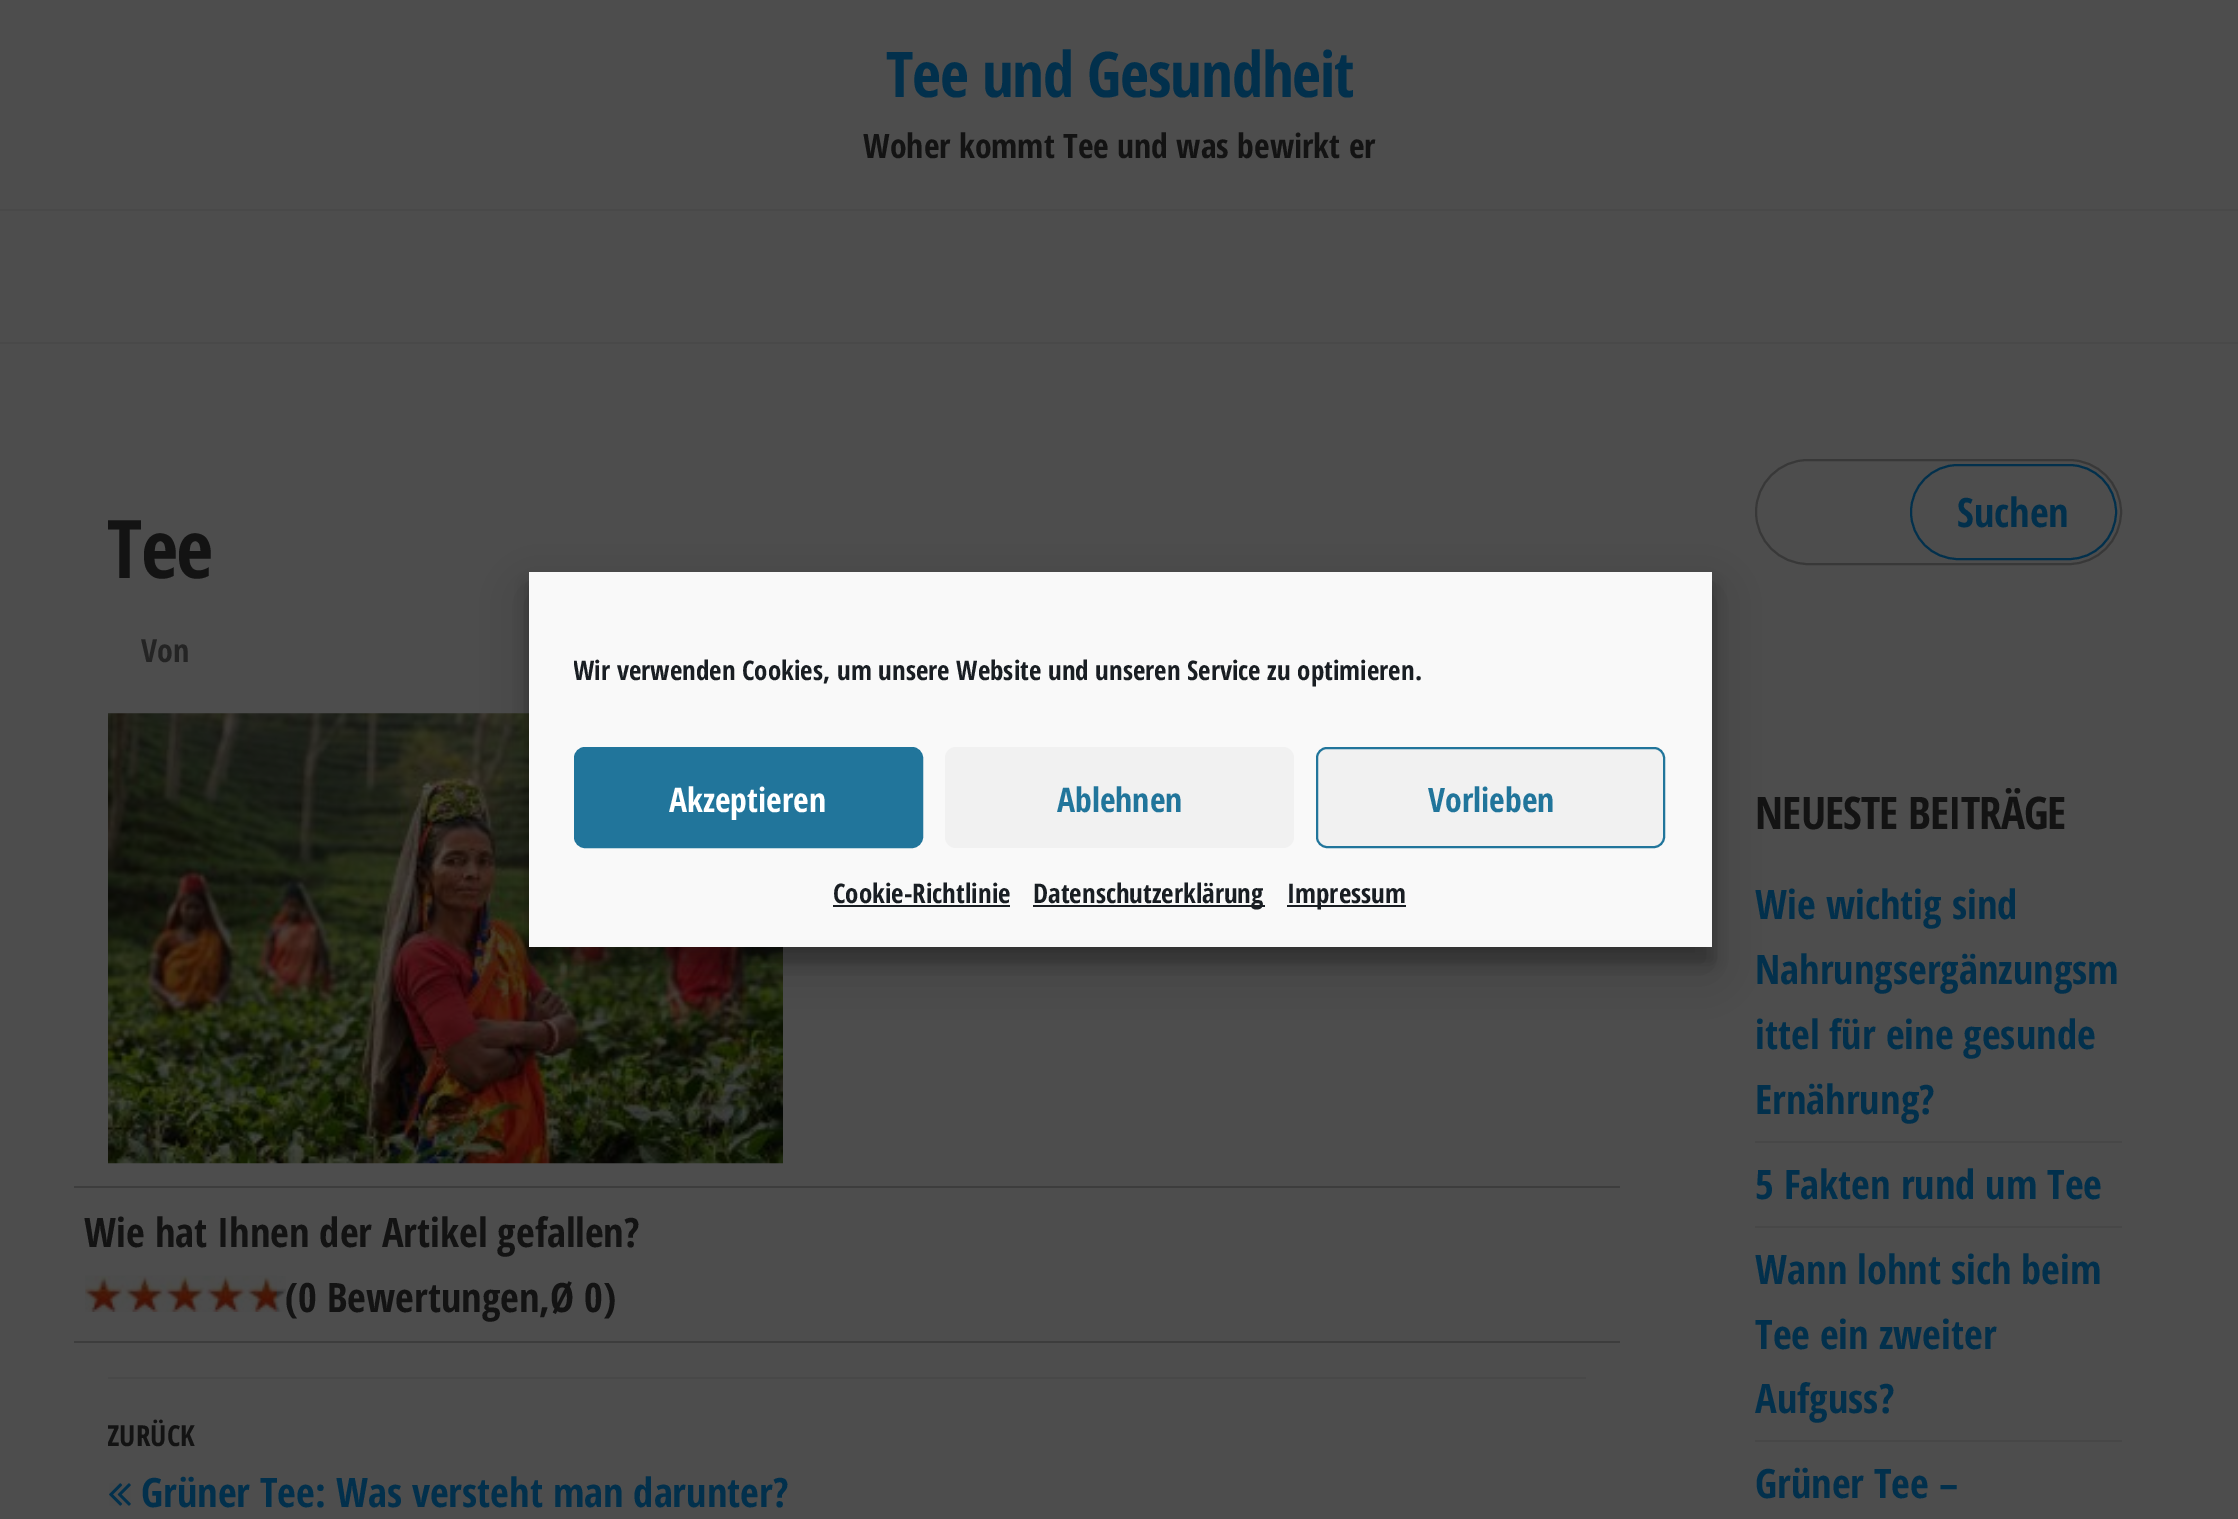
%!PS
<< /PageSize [2238 1519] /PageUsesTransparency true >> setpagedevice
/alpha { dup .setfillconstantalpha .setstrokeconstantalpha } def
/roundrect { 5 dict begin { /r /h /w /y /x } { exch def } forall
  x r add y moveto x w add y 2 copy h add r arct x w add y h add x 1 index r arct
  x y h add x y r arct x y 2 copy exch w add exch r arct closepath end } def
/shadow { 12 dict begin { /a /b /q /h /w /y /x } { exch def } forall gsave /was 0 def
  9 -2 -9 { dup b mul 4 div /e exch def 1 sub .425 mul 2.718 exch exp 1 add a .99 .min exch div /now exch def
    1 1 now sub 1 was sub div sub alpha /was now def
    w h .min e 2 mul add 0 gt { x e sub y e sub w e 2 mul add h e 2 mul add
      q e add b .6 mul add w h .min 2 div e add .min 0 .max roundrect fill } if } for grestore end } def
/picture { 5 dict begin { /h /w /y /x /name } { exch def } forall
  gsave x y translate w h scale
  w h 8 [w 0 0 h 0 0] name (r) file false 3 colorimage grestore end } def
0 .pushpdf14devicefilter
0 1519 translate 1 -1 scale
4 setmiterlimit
0.302 setgray
0 0 2238 1519 rectfill
/OpenSansCondensed-Bold [63 0 0 -63 0 0] selectfont
0.008 0.188 0.298 setrgbcolor
886 97 moveto -1.25 0 (Tee und Gesundheit) ashow
/OpenSansCondensed-Bold [33.75 0 0 -33.75 0 0] selectfont
0.075 setgray
863 158 moveto (Woher kommt Tee und was bewirkt er) show
0.286 setgray
0 209 2238 2 rectfill
0 342 2238 2 rectfill
/OpenSansCondensed-Bold [81 0 0 -81 0 0] selectfont
0.075 setgray
107 578 moveto -1.5 0 (Tee) ashow
/OpenSansCondensed-Bold [32 0 0 -32 0 0] selectfont
0.141 setgray
141 662 moveto (Von) show
(img1.rgb) 108 713 675 451 picture
0.239 setgray
74 1186 1546 2 rectfill
74 1341 1546 2 rectfill
/OpenSansCondensed-Bold [40.5 0 0 -40.5 0 0] selectfont
0.075 setgray
84 1247 moveto (Wie hat Ihnen der Artikel gefallen?) show
(img2.rgb) 85 1276 201 36 picture
(img3.rgb) 85 1275 192 37 picture
285 1312 moveto (\(0 Bewertungen,Ø 0\)) show
0.282 setgray
108 1377 1478 2 rectfill
gsave
108 1379 1478 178 rectclip
/OpenSansCondensed-Bold [29 0 0 -29 0 0] selectfont
0.075 setgray
107 1446 moveto (ZURÜCK) show
grestore
(img4.rgb) 109 1483 22 23 picture
0.008 0.188 0.298 setrgbcolor
141 1507 moveto (Grüner Tee: Was versteht man darunter?) show
0.22 setgray
2 setlinewidth
1756 460 365 104 52 roundrect stroke
0.008 0.188 0.298 setrgbcolor
1911 465 205 94 47 roundrect stroke
1957 527 moveto (Suchen) show
/OpenSansCondensed-Bold [45 0 0 -45 0 0] selectfont
0.075 setgray
1755 829 moveto -0.9 0 (NEUESTE BEITRÄGE) ashow
0.278 setgray
1755 1141 367 2 rectfill
/OpenSansCondensed-Bold [40.5 0 0 -40.5 0 0] selectfont
0.008 0.188 0.298 setrgbcolor
1755 919 moveto (Wie wichtig sind) show
1755 984 moveto (Nahrungsergänzungsm) show
1755 1049 moveto (ittel für eine gesunde) show
1755 1114 moveto (Ernährung?) show
0.278 setgray
1755 1226 367 2 rectfill
0.008 0.188 0.298 setrgbcolor
1755 1199 moveto (5 Fakten rund um Tee) show
0.278 setgray
1755 1440 367 2 rectfill
0.008 0.188 0.298 setrgbcolor
1755 1284 moveto (Wann lohnt sich beim) show
1755 1349 moveto (Tee ein zweiter) show
1755 1413 moveto (Aufguss?) show
1755 1498 moveto (Grüner Tee –) show
0 setgray
529 585 1183 376 0 7 0.23 shadow
529 594 1183 376 0 22.5 0.19 shadow
0.976 setgray
529 572 1183 375 rectfill
gsave
574 650 1093 52 rectclip
/OpenSansCondensed-Bold [27 0 0 -27 0 0] selectfont
0.098 0.118 0.137 setrgbcolor
573 680 moveto (Wir verwenden Cookies, um unsere Website und unseren Service zu optimieren.) show
grestore
0.129 0.459 0.608 setrgbcolor
575 748 347 99 10 roundrect gsave fill grestore
stroke
/OpenSansCondensed-Bold [33.75 0 0 -33.75 0 0] selectfont
1 setgray
669 812 moveto (Akzeptieren) show
0.945 setgray
945 747 349 101 11 roundrect fill
0.129 0.459 0.608 setrgbcolor
1057 812 moveto (Ablehnen) show
0.945 setgray
1317 748 347 99 10 roundrect gsave fill grestore
0.129 0.459 0.608 setrgbcolor
stroke
1428 812 moveto (Vorlieben) show
/OpenSansCondensed-Bold [27 0 0 -27 0 0] selectfont
0.098 0.118 0.137 setrgbcolor
833 903 moveto (Cookie-Richtlinie) show
833 905 177 2 rectfill
1033 905 232 2 rectfill
1033 903 moveto (Datenschutzerklärung) show
1287 905 119 2 rectfill
1287 903 moveto (Impressum) show
.poppdf14devicefilter showpage
